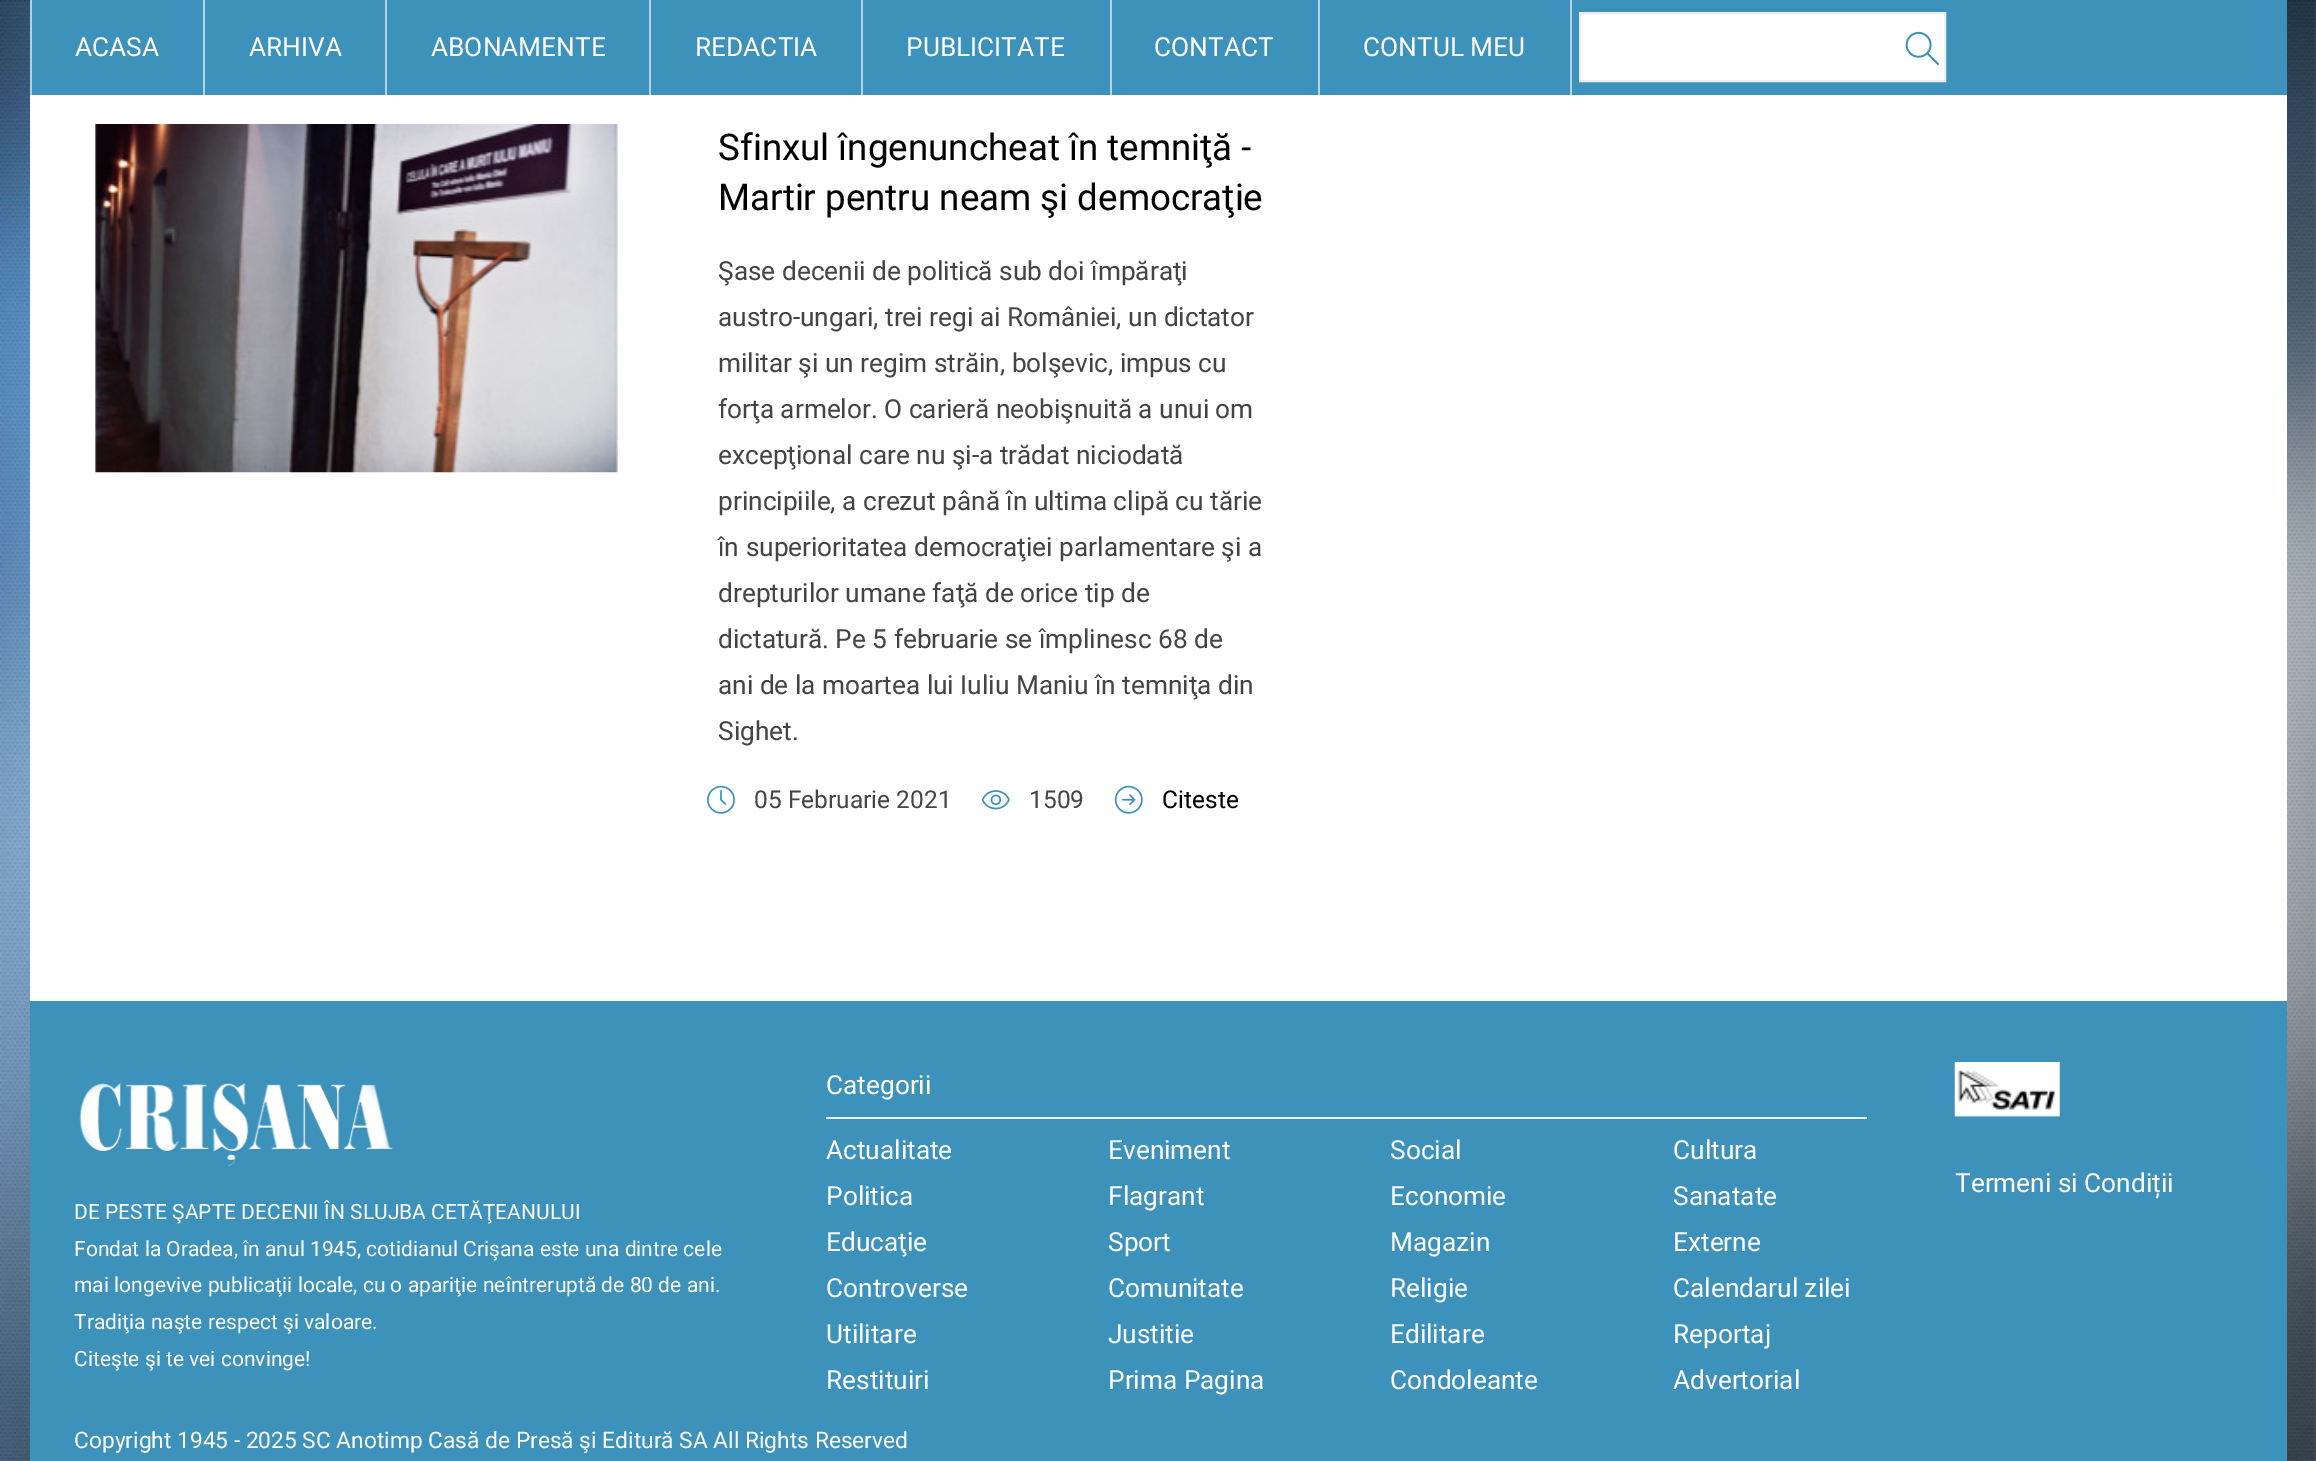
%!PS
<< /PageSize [2316 1461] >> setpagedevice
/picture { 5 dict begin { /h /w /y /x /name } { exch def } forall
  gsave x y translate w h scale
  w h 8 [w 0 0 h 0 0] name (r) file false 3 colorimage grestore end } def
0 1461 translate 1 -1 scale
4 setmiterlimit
1 setgray
0 0 2316 1461 rectfill
(img1.rgb) 0 0 2316 1461 picture
0.239 0.573 0.733 setrgbcolor
32 0 2255 95 rectfill
0.694 0.827 0.894 setrgbcolor
30 0 2 95 rectfill
/Roboto-Regular [26.25 0 0 -26.25 0 0] selectfont
1 setgray
75 56 moveto (ACASA) show
0.694 0.827 0.894 setrgbcolor
203 0 2 95 rectfill
1 setgray
249 56 moveto (ARHIVA) show
0.694 0.827 0.894 setrgbcolor
385 0 2 95 rectfill
1 setgray
431 56 moveto (ABONAMENTE) show
0.694 0.827 0.894 setrgbcolor
649 0 2 95 rectfill
1 setgray
695 56 moveto (REDACTIA) show
0.694 0.827 0.894 setrgbcolor
861 0 2 95 rectfill
1 setgray
906 56 moveto (PUBLICITATE) show
0.694 0.827 0.894 setrgbcolor
1110 0 2 95 rectfill
1 setgray
1154 56 moveto (CONTACT) show
0.694 0.827 0.894 setrgbcolor
1570 0 2 95 rectfill
1318 0 2 95 rectfill
1 setgray
1363 56 moveto (CONTUL MEU) show
newpath 1580 13 moveto 1945 13 lineto 1945 81 lineto 1580 81 lineto closepath gsave fill grestore
0.933 setgray
2 setlinewidth
stroke
(img2.rgb) 1905 31 34 34 picture
1 setgray
30 95 2257 906 rectfill
(img3.rgb) 94 124 524 349 picture
/Roboto-Regular [36.75 0 0 -36.75 0 0] selectfont
0 setgray
718 160 moveto (Sfinxul îngenuncheat în temniţă -) show
718 210 moveto (Martir pentru neam şi democraţie) show
/Roboto-Regular [26.25 0 0 -26.25 0 0] selectfont
0.267 setgray
718 280 moveto (Şase decenii de politică sub doi împăraţi) show
718 326 moveto (austro-ungari, trei regi ai României, un dictator) show
718 372 moveto (militar şi un regim străin, bolşevic, impus cu) show
718 418 moveto (forţa armelor. O carieră neobişnuită a unui om) show
718 464 moveto (excepţional care nu şi-a trădat niciodată) show
718 510 moveto (principiile, a crezut până în ultima clipă cu tărie) show
718 556 moveto (în superioritatea democraţiei parlamentare şi a) show
718 602 moveto (drepturilor umane faţă de orice tip de) show
718 648 moveto (dictatură. Pe 5 februarie se împlinesc 68 de) show
718 694 moveto (ani de la moartea lui Iuliu Maniu în temniţa din) show
718 740 moveto (Sighet.) show
(img4.rgb) 707 785 28 29 picture
/Roboto-Regular [24.5 0 0 -24.5 0 0] selectfont
754 808 moveto (05 Februarie 2021) show
(img5.rgb) 981 790 29 20 picture
1029 808 moveto (1509) show
(img6.rgb) 1114 785 29 29 picture
0 setgray
1162 808 moveto (Citeste) show
0.239 0.573 0.733 setrgbcolor
30 1001 2257 460 rectfill
/Roboto-Regular [26.25 0 0 -26.25 0 0] selectfont
1 setgray
826 1094 moveto (Categorii) show
0.933 setgray
826 1117 1041 2 rectfill
1 setgray
826 1159 moveto (Actualitate) show
1108 1159 moveto (Eveniment) show
1390 1159 moveto (Social) show
1673 1159 moveto (Cultura) show
826 1205 moveto (Politica) show
1108 1205 moveto (Flagrant) show
1390 1205 moveto (Economie) show
1673 1205 moveto (Sanatate) show
826 1251 moveto (Educaţie) show
1108 1251 moveto (Sport) show
1390 1251 moveto (Magazin) show
1673 1251 moveto (Externe) show
826 1297 moveto (Controverse) show
1108 1297 moveto (Comunitate) show
1390 1297 moveto (Religie) show
1673 1297 moveto (Calendarul zilei) show
826 1343 moveto (Utilitare) show
1108 1343 moveto (Justitie) show
1390 1343 moveto (Edilitare) show
1673 1343 moveto (Reportaj) show
826 1389 moveto (Restituiri) show
1108 1389 moveto (Prima Pagina) show
1390 1389 moveto (Condoleante) show
1673 1389 moveto (Advertorial) show
(img7.rgb) 1954 1062 106 55 picture
1955 1192 moveto (Termeni si Condiții) show
(img8.rgb) 79 1083 315 84 picture
/Roboto-Regular [21 0 0 -21 0 0] selectfont
74 1219 moveto (DE PESTE ŞAPTE DECENII ÎN SLUJBA CETĂŢEANULUI) show
74 1256 moveto (Fondat la Oradea, în anul 1945, cotidianul Crişana este una dintre cele) show
74 1292 moveto (mai longevive publicaţii locale, cu o apariţie neîntreruptă de 80 de ani.) show
74 1329 moveto (Tradiţia naşte respect şi valoare.) show
74 1366 moveto (Citeşte şi te vei convinge!) show
/Roboto-Regular [22.75 0 0 -22.75 0 0] selectfont
74 1448 moveto (Copyright 1945 - 2025 SC Anotimp Casă de Presă şi Editură SA All Rights Reserved) show
showpage
